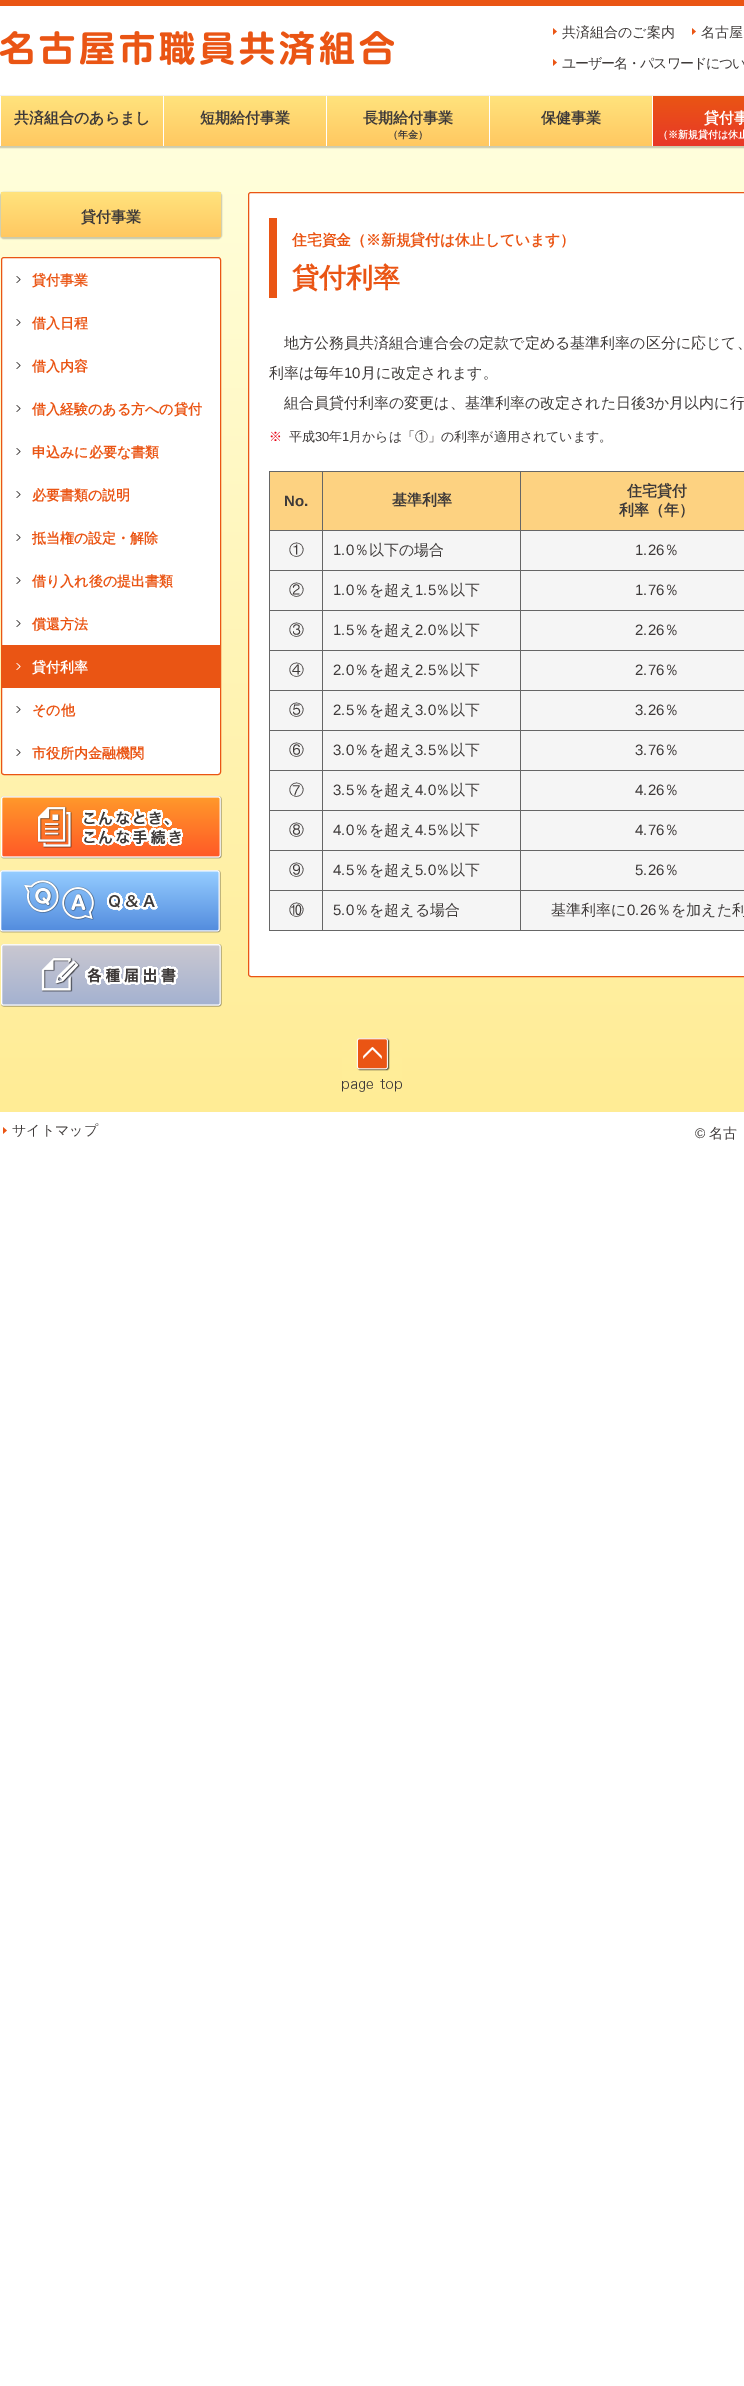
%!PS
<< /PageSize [744 2386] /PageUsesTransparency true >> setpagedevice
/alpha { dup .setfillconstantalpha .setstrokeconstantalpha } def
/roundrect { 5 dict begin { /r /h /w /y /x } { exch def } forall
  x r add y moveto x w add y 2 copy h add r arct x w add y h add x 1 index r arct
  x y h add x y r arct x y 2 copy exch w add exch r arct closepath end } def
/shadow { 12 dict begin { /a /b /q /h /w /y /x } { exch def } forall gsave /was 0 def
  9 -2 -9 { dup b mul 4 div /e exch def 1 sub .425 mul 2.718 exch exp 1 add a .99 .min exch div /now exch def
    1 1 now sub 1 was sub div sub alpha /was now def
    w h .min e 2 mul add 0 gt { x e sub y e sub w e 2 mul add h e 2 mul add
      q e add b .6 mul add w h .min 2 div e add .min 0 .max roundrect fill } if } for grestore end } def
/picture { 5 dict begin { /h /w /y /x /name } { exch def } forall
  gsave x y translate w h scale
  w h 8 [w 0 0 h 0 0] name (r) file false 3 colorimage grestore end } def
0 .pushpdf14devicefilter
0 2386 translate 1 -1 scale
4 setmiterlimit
1 setgray
0 0 744 2386 rectfill
0.918 0.333 0.078 setrgbcolor
0 0 744 6 rectfill
(img1.rgb) 0 31 394 34 picture
(img2.rgb) 553 28 4 7 picture
/WenQuanYiZenHei-Medium [14 0 0 -14 0 0] selectfont
0.243 0.227 0.224 setrgbcolor
562 37 moveto (共済組合のご案内) show
(img2.rgb) 692 28 4 7 picture
701 37 moveto (名古屋) show
(img2.rgb) 553 59 4 7 picture
562 68 moveto -1.1 0 (ユーザー名・パスワードについ) ashow
gsave newpath 0 146 moveto 744 146 lineto 744 1112 lineto 0 1112 lineto closepath clip newpath
<< /ShadingType 2 /ColorSpace /DeviceRGB /Coords [372 146 372 1112] /Extend [true true] /Function << /FunctionType 2 /Domain [0 1] /C0 [1 1 0.863] /C1 [1 0.925 0.584] /N 1 >> >> shfill grestore
0 setgray
-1 96 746 52 0 0.5 0.2 shadow
gsave newpath 1 96 moveto 652 96 lineto 652 146 lineto 1 146 lineto closepath clip newpath
<< /ShadingType 2 /ColorSpace /DeviceRGB /Coords [372 96 372 146] /Extend [true true] /Function << /FunctionType 2 /Domain [0 1] /C0 [1 0.89 0.49] /C1 [1 0.784 0.38] /N 1 >> >> shfill grestore
1 setgray
0 96 1 50 rectfill
/WenQuanYiZenHei-Bold [15 0 0 -15 0 0] selectfont
0.243 0.227 0.224 setrgbcolor
14 123 moveto (共済組合のあらまし) show
1 setgray
163 96 1 50 rectfill
0.243 0.227 0.224 setrgbcolor
200 123 moveto (短期給付事業) show
1 setgray
326 96 1 50 rectfill
0.243 0.227 0.224 setrgbcolor
363 123 moveto (長期給付事業) show
/WenQuanYiZenHei-Bold [10 0 0 -10 0 0] selectfont
388 138 moveto (（年金）) show
1 setgray
489 96 1 50 rectfill
/WenQuanYiZenHei-Bold [15 0 0 -15 0 0] selectfont
0.243 0.227 0.224 setrgbcolor
541 123 moveto (保健事業) show
1 setgray
652 96 1 50 rectfill
gsave newpath 653 96 moveto 744 96 lineto 744 146 lineto 653 146 lineto closepath clip newpath
<< /ShadingType 2 /ColorSpace /DeviceRGB /Coords [734 96 734 146] /Extend [true true] /Function << /FunctionType 2 /Domain [0 1] /C0 [0.918 0.333 0.078] /C1 [0.91 0.22 0.157] /N 1 >> >> shfill grestore
704 123 moveto (貸付事) show
/WenQuanYiZenHei-Bold [10 0 0 -10 0 0] selectfont
658 138 moveto (（※新規貸付は休止) show
0 setgray
0 192 222 47 4 0.5 0.2 shadow
gsave 1 192 220 45 3 roundrect clip newpath
<< /ShadingType 2 /ColorSpace /DeviceRGB /Coords [111 192 111 237] /Extend [true true] /Function << /FunctionType 2 /Domain [0 1] /C0 [1 0.89 0.49] /C1 [1 0.784 0.38] /N 1 >> >> shfill grestore
/WenQuanYiZenHei-Bold [15 0 0 -15 0 0] selectfont
0.243 0.227 0.224 setrgbcolor
81 222 moveto (貸付事業) show
1 setgray
1.5 257.5 219 517 2.5 roundrect gsave fill grestore
0.918 0.333 0.078 setrgbcolor
stroke
(img3.rgb) 16 276 5 7 picture
/WenQuanYiZenHei-Bold [14 0 0 -14 0 0] selectfont
32 285 moveto (貸付事業) show
(img3.rgb) 16 319 5 7 picture
32 328 moveto (借入日程) show
(img3.rgb) 16 362 5 7 picture
32 371 moveto (借入内容) show
(img3.rgb) 16 405 5 7 picture
32 414 moveto (借入経験のある方への貸付) show
(img3.rgb) 16 448 5 7 picture
32 457 moveto (申込みに必要な書類) show
(img3.rgb) 16 491 5 7 picture
32 500 moveto (必要書類の説明) show
(img3.rgb) 16 534 5 7 picture
32 543 moveto (抵当権の設定・解除) show
(img3.rgb) 16 577 5 7 picture
32 586 moveto (借り入れ後の提出書類) show
(img3.rgb) 16 620 5 7 picture
32 629 moveto (償還方法) show
2 645 218 43 rectfill
(img4.rgb) 16 663 5 7 picture
1 setgray
32 672 moveto (貸付利率) show
(img3.rgb) 16 706 5 7 picture
0.918 0.333 0.078 setrgbcolor
32 715 moveto (その他) show
(img3.rgb) 16 749 5 7 picture
32 758 moveto (市役所内金融機関) show
(img5.rgb) 1 796 221 63 picture
(img6.rgb) 0 870 221 63 picture
(img7.rgb) 1 944 221 63 picture
1 setgray
248.5 192.5 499 784 2.5 roundrect gsave fill grestore
0.918 0.333 0.078 setrgbcolor
stroke
269 218 8 80 rectfill
/WenQuanYiZenHei-Bold [14.8 0 0 -14.8 0 0] selectfont
292 245 moveto (住宅資金（※新規貸付は休止しています）) show
/WenQuanYiZenHei-Bold [27 0 0 -27 0 0] selectfont
292 287 moveto (貸付利率) show
/WenQuanYiZenHei-Medium [15 0 0 -15 0 0] selectfont
0.243 0.227 0.224 setrgbcolor
284 348 moveto (地方公務員共済組合連合会の定款で定める基準利率の区分に応じて、) show
269 378 moveto (利率は毎年) show
/LiberationSans-Regular [15 0 0 -15 0 0] selectfont
344 378 moveto (10) show
/WenQuanYiZenHei-Medium [15 0 0 -15 0 0] selectfont
361 378 moveto (月に改定されます。) show
284 408 moveto (組合員貸付利率の変更は、基準利率の改定された日後) show
/LiberationSans-Regular [15 0 0 -15 0 0] selectfont
646 408 moveto (3) show
/WenQuanYiZenHei-Medium [15 0 0 -15 0 0] selectfont
654 408 moveto (か月以内に行) show
/WenQuanYiZenHei-Medium [13 0 0 -13 0 0] selectfont
0.902 0 0.071 setrgbcolor
269 441 moveto (※) show
0.243 0.227 0.224 setrgbcolor
289 441 moveto (平成) show
/LiberationSans-Regular [13 0 0 -13 0 0] selectfont
315 441 moveto (30) show
/WenQuanYiZenHei-Medium [13 0 0 -13 0 0] selectfont
329 441 moveto (年) show
/LiberationSans-Regular [13 0 0 -13 0 0] selectfont
342 441 moveto (1) show
/WenQuanYiZenHei-Medium [13 0 0 -13 0 0] selectfont
349 441 moveto (月からは「①」の利率が適用されています。) show
0.4 setgray
269 471 475 1 rectfill
0.992 0.824 0.506 setrgbcolor
270 472 52 58 rectfill
0.4 setgray
520 930 224 1 rectfill
520 890 1 41 rectfill
520 890 224 1 rectfill
520 850 1 41 rectfill
520 850 224 1 rectfill
520 810 1 41 rectfill
520 810 224 1 rectfill
520 770 1 41 rectfill
520 770 224 1 rectfill
520 730 1 41 rectfill
520 730 224 1 rectfill
520 690 1 41 rectfill
520 690 224 1 rectfill
520 650 1 41 rectfill
520 650 224 1 rectfill
520 610 1 41 rectfill
520 610 224 1 rectfill
520 570 1 41 rectfill
520 570 224 1 rectfill
520 530 1 41 rectfill
520 530 224 1 rectfill
520 471 1 60 rectfill
322 930 199 1 rectfill
322 890 1 41 rectfill
322 890 199 1 rectfill
322 850 1 41 rectfill
322 850 199 1 rectfill
322 810 1 41 rectfill
322 810 199 1 rectfill
322 770 1 41 rectfill
322 770 199 1 rectfill
322 730 1 41 rectfill
322 730 199 1 rectfill
322 690 1 41 rectfill
322 690 199 1 rectfill
322 650 1 41 rectfill
322 650 199 1 rectfill
322 610 1 41 rectfill
322 610 199 1 rectfill
322 570 1 41 rectfill
322 570 199 1 rectfill
322 530 1 41 rectfill
322 530 199 1 rectfill
322 471 1 60 rectfill
269 930 54 1 rectfill
269 890 1 41 rectfill
269 890 54 1 rectfill
269 850 1 41 rectfill
269 850 54 1 rectfill
269 810 1 41 rectfill
269 810 54 1 rectfill
269 770 1 41 rectfill
269 770 54 1 rectfill
269 730 1 41 rectfill
269 730 54 1 rectfill
269 690 1 41 rectfill
269 690 54 1 rectfill
269 650 1 41 rectfill
269 650 54 1 rectfill
269 610 1 41 rectfill
269 610 54 1 rectfill
269 570 1 41 rectfill
269 570 54 1 rectfill
269 530 1 41 rectfill
269 530 54 1 rectfill
269 471 1 60 rectfill
/LiberationSans-Bold [15 0 0 -15 0 0] selectfont
0.243 0.227 0.224 setrgbcolor
284 506 moveto (No.) show
0.992 0.824 0.506 setrgbcolor
323 472 197 58 rectfill
/WenQuanYiZenHei-Bold [15 0 0 -15 0 0] selectfont
0.243 0.227 0.224 setrgbcolor
392 505 moveto (基準利率) show
0.992 0.824 0.506 setrgbcolor
521 472 223 58 rectfill
0.243 0.227 0.224 setrgbcolor
627 496 moveto (住宅貸付) show
619 515 moveto (利率（年）) show
0.961 setgray
270 531 52 39 rectfill
/WenQuanYiZenHei-Medium [15 0 0 -15 0 0] selectfont
0.243 0.227 0.224 setrgbcolor
289 555 moveto (①) show
0.961 setgray
323 531 197 39 rectfill
/LiberationSans-Regular [15 0 0 -15 0 0] selectfont
0.243 0.227 0.224 setrgbcolor
333 555 moveto (1.0) show
/WenQuanYiZenHei-Medium [15 0 0 -15 0 0] selectfont
354 555 moveto (％以下の場合) show
0.961 setgray
521 531 223 39 rectfill
/LiberationSans-Regular [15 0 0 -15 0 0] selectfont
0.243 0.227 0.224 setrgbcolor
635 555 moveto (1.26) show
/WenQuanYiZenHei-Medium [15 0 0 -15 0 0] selectfont
664 555 moveto (％) show
0.961 setgray
270 571 52 39 rectfill
0.243 0.227 0.224 setrgbcolor
289 595 moveto (②) show
0.961 setgray
323 571 197 39 rectfill
/LiberationSans-Regular [15 0 0 -15 0 0] selectfont
0.243 0.227 0.224 setrgbcolor
333 595 moveto (1.0) show
/WenQuanYiZenHei-Medium [15 0 0 -15 0 0] selectfont
354 595 moveto (％を超え) show
/LiberationSans-Regular [15 0 0 -15 0 0] selectfont
415 595 moveto (1.5) show
/WenQuanYiZenHei-Medium [15 0 0 -15 0 0] selectfont
435 595 moveto (％以下) show
0.961 setgray
521 571 223 39 rectfill
/LiberationSans-Regular [15 0 0 -15 0 0] selectfont
0.243 0.227 0.224 setrgbcolor
635 595 moveto (1.76) show
/WenQuanYiZenHei-Medium [15 0 0 -15 0 0] selectfont
664 595 moveto (％) show
0.961 setgray
270 611 52 39 rectfill
0.243 0.227 0.224 setrgbcolor
289 635 moveto (③) show
0.961 setgray
323 611 197 39 rectfill
/LiberationSans-Regular [15 0 0 -15 0 0] selectfont
0.243 0.227 0.224 setrgbcolor
333 635 moveto (1.5) show
/WenQuanYiZenHei-Medium [15 0 0 -15 0 0] selectfont
354 635 moveto (％を超え) show
/LiberationSans-Regular [15 0 0 -15 0 0] selectfont
415 635 moveto (2.0) show
/WenQuanYiZenHei-Medium [15 0 0 -15 0 0] selectfont
435 635 moveto (％以下) show
0.961 setgray
521 611 223 39 rectfill
/LiberationSans-Regular [15 0 0 -15 0 0] selectfont
0.243 0.227 0.224 setrgbcolor
635 635 moveto (2.26) show
/WenQuanYiZenHei-Medium [15 0 0 -15 0 0] selectfont
664 635 moveto (％) show
0.961 setgray
270 651 52 39 rectfill
0.243 0.227 0.224 setrgbcolor
289 675 moveto (④) show
0.961 setgray
323 651 197 39 rectfill
/LiberationSans-Regular [15 0 0 -15 0 0] selectfont
0.243 0.227 0.224 setrgbcolor
333 675 moveto (2.0) show
/WenQuanYiZenHei-Medium [15 0 0 -15 0 0] selectfont
354 675 moveto (％を超え) show
/LiberationSans-Regular [15 0 0 -15 0 0] selectfont
415 675 moveto (2.5) show
/WenQuanYiZenHei-Medium [15 0 0 -15 0 0] selectfont
435 675 moveto (％以下) show
0.961 setgray
521 651 223 39 rectfill
/LiberationSans-Regular [15 0 0 -15 0 0] selectfont
0.243 0.227 0.224 setrgbcolor
635 675 moveto (2.76) show
/WenQuanYiZenHei-Medium [15 0 0 -15 0 0] selectfont
664 675 moveto (％) show
0.961 setgray
270 691 52 39 rectfill
0.243 0.227 0.224 setrgbcolor
289 715 moveto (⑤) show
0.961 setgray
323 691 197 39 rectfill
/LiberationSans-Regular [15 0 0 -15 0 0] selectfont
0.243 0.227 0.224 setrgbcolor
333 715 moveto (2.5) show
/WenQuanYiZenHei-Medium [15 0 0 -15 0 0] selectfont
354 715 moveto (％を超え) show
/LiberationSans-Regular [15 0 0 -15 0 0] selectfont
415 715 moveto (3.0) show
/WenQuanYiZenHei-Medium [15 0 0 -15 0 0] selectfont
435 715 moveto (％以下) show
0.961 setgray
521 691 223 39 rectfill
/LiberationSans-Regular [15 0 0 -15 0 0] selectfont
0.243 0.227 0.224 setrgbcolor
635 715 moveto (3.26) show
/WenQuanYiZenHei-Medium [15 0 0 -15 0 0] selectfont
664 715 moveto (％) show
0.961 setgray
270 731 52 39 rectfill
0.243 0.227 0.224 setrgbcolor
289 755 moveto (⑥) show
0.961 setgray
323 731 197 39 rectfill
/LiberationSans-Regular [15 0 0 -15 0 0] selectfont
0.243 0.227 0.224 setrgbcolor
333 755 moveto (3.0) show
/WenQuanYiZenHei-Medium [15 0 0 -15 0 0] selectfont
354 755 moveto (％を超え) show
/LiberationSans-Regular [15 0 0 -15 0 0] selectfont
415 755 moveto (3.5) show
/WenQuanYiZenHei-Medium [15 0 0 -15 0 0] selectfont
435 755 moveto (％以下) show
0.961 setgray
521 731 223 39 rectfill
/LiberationSans-Regular [15 0 0 -15 0 0] selectfont
0.243 0.227 0.224 setrgbcolor
635 755 moveto (3.76) show
/WenQuanYiZenHei-Medium [15 0 0 -15 0 0] selectfont
664 755 moveto (％) show
0.961 setgray
270 771 52 39 rectfill
0.243 0.227 0.224 setrgbcolor
289 795 moveto (⑦) show
0.961 setgray
323 771 197 39 rectfill
/LiberationSans-Regular [15 0 0 -15 0 0] selectfont
0.243 0.227 0.224 setrgbcolor
333 795 moveto (3.5) show
/WenQuanYiZenHei-Medium [15 0 0 -15 0 0] selectfont
354 795 moveto (％を超え) show
/LiberationSans-Regular [15 0 0 -15 0 0] selectfont
415 795 moveto (4.0) show
/WenQuanYiZenHei-Medium [15 0 0 -15 0 0] selectfont
435 795 moveto (％以下) show
0.961 setgray
521 771 223 39 rectfill
/LiberationSans-Regular [15 0 0 -15 0 0] selectfont
0.243 0.227 0.224 setrgbcolor
635 795 moveto (4.26) show
/WenQuanYiZenHei-Medium [15 0 0 -15 0 0] selectfont
664 795 moveto (％) show
0.961 setgray
270 811 52 39 rectfill
0.243 0.227 0.224 setrgbcolor
289 835 moveto (⑧) show
0.961 setgray
323 811 197 39 rectfill
/LiberationSans-Regular [15 0 0 -15 0 0] selectfont
0.243 0.227 0.224 setrgbcolor
333 835 moveto (4.0) show
/WenQuanYiZenHei-Medium [15 0 0 -15 0 0] selectfont
354 835 moveto (％を超え) show
/LiberationSans-Regular [15 0 0 -15 0 0] selectfont
415 835 moveto (4.5) show
/WenQuanYiZenHei-Medium [15 0 0 -15 0 0] selectfont
435 835 moveto (％以下) show
0.961 setgray
521 811 223 39 rectfill
/LiberationSans-Regular [15 0 0 -15 0 0] selectfont
0.243 0.227 0.224 setrgbcolor
635 835 moveto (4.76) show
/WenQuanYiZenHei-Medium [15 0 0 -15 0 0] selectfont
664 835 moveto (％) show
0.961 setgray
270 851 52 39 rectfill
0.243 0.227 0.224 setrgbcolor
289 875 moveto (⑨) show
0.961 setgray
323 851 197 39 rectfill
/LiberationSans-Regular [15 0 0 -15 0 0] selectfont
0.243 0.227 0.224 setrgbcolor
333 875 moveto (4.5) show
/WenQuanYiZenHei-Medium [15 0 0 -15 0 0] selectfont
354 875 moveto (％を超え) show
/LiberationSans-Regular [15 0 0 -15 0 0] selectfont
415 875 moveto (5.0) show
/WenQuanYiZenHei-Medium [15 0 0 -15 0 0] selectfont
435 875 moveto (％以下) show
0.961 setgray
521 851 223 39 rectfill
/LiberationSans-Regular [15 0 0 -15 0 0] selectfont
0.243 0.227 0.224 setrgbcolor
635 875 moveto (5.26) show
/WenQuanYiZenHei-Medium [15 0 0 -15 0 0] selectfont
664 875 moveto (％) show
0.961 setgray
270 891 52 39 rectfill
0.243 0.227 0.224 setrgbcolor
289 915 moveto (⑩) show
0.961 setgray
323 891 197 39 rectfill
/LiberationSans-Regular [15 0 0 -15 0 0] selectfont
0.243 0.227 0.224 setrgbcolor
333 915 moveto (5.0) show
/WenQuanYiZenHei-Medium [15 0 0 -15 0 0] selectfont
354 915 moveto (％を超える場合) show
0.961 setgray
521 891 223 39 rectfill
0.243 0.227 0.224 setrgbcolor
551 915 moveto (基準利率に) show
/LiberationSans-Regular [15 0 0 -15 0 0] selectfont
627 915 moveto (0.26) show
/WenQuanYiZenHei-Medium [15 0 0 -15 0 0] selectfont
656 915 moveto (％を加えた利) show
(img8.rgb) 342 1038 60 54 picture
(img2.rgb) 3 1127 4 7 picture
/WenQuanYiZenHei-Medium [14 0 0 -14 0 0] selectfont
12 1135 moveto (サイトマップ) show
/LiberationSans-Regular [14 0 0 -14 0 0] selectfont
695 1138 moveto (©) show
/WenQuanYiZenHei-Medium [14 0 0 -14 0 0] selectfont
709 1138 moveto (名古) show
.poppdf14devicefilter showpage
